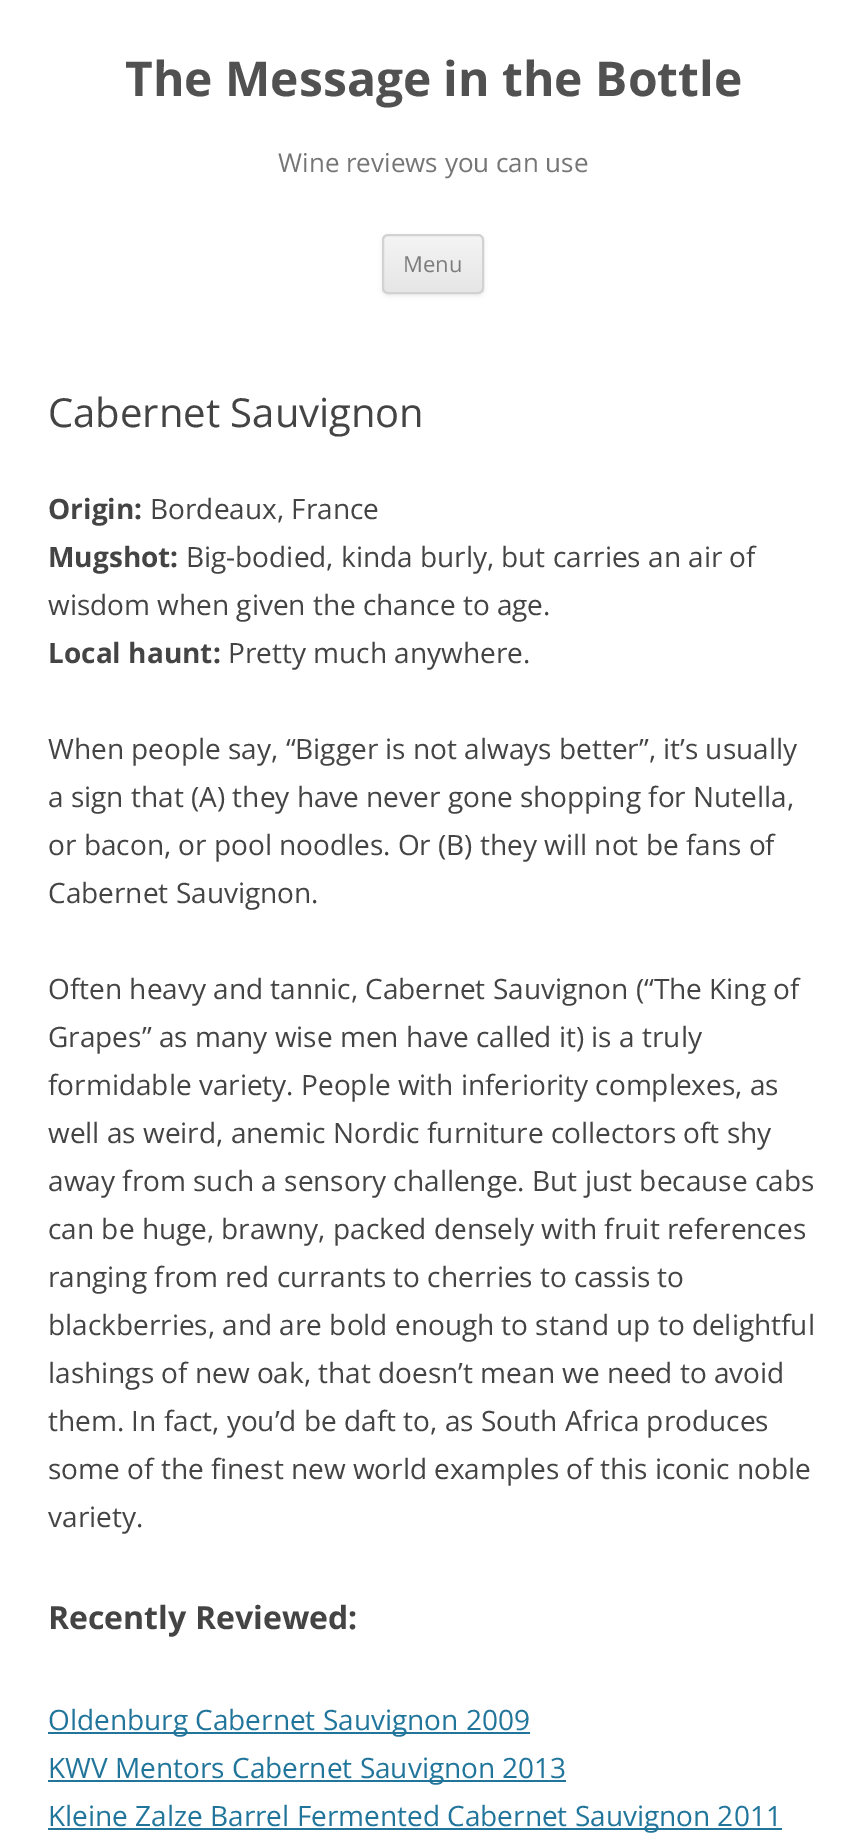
%!PS
<< /PageSize [866 1836] /PageUsesTransparency true >> setpagedevice
/alpha { dup .setfillconstantalpha .setstrokeconstantalpha } def
/roundrect { 5 dict begin { /r /h /w /y /x } { exch def } forall
  x r add y moveto x w add y 2 copy h add r arct x w add y h add x 1 index r arct
  x y h add x y r arct x y 2 copy exch w add exch r arct closepath end } def
/shadow { 12 dict begin { /a /b /q /h /w /y /x } { exch def } forall gsave /was 0 def
  9 -2 -9 { dup b mul 4 div /e exch def 1 sub .425 mul 2.718 exch exp 1 add a .99 .min exch div /now exch def
    1 1 now sub 1 was sub div sub alpha /was now def
    w h .min e 2 mul add 0 gt { x e sub y e sub w e 2 mul add h e 2 mul add
      q e add b .6 mul add w h .min 2 div e add .min 0 .max roundrect fill } if } for grestore end } def
0 .pushpdf14devicefilter
0 1836 translate 1 -1 scale
4 setmiterlimit
1 setgray
0 0 866 1836 rectfill
/OpenSans-Bold [48 0 0 -48 0 0] selectfont
0.318 setgray
125 96 moveto (The Message in the Bottle) show
/OpenSans-Regular [26 0 0 -26 0 0] selectfont
0.459 setgray
278 172 moveto (Wine reviews you can use) show
0.251 setgray
382 236 102 60 6 2 0.1 shadow
gsave
382 234 102 60 6 roundrect clip newpath
gsave newpath 382 236 moveto 484 236 lineto 484 292 lineto 382 292 lineto closepath clip newpath
<< /ShadingType 2 /ColorSpace /DeviceRGB /Coords [433 236 433 292] /Extend [true true] /Function << /FunctionType 2 /Domain [0 1] /C0 [0.957 0.957 0.957] /C1 [0.902 0.902 0.902] /N 1 >> >> shfill grestore
grestore
0.824 setgray
2 setlinewidth
383 235 100 58 5 roundrect stroke
/OpenSans-Regular [22 0 0 -22 0 0] selectfont
0.486 setgray
403 272 moveto (Menu) show
/OpenSans-Regular [40 0 0 -40 0 0] selectfont
0.267 setgray
48 427 moveto (Cabernet Sauvignon) show
/OpenSans-Bold [28 0 0 -28 0 0] selectfont
48 519 moveto (Origin:) show
/OpenSans-Regular [28 0 0 -28 0 0] selectfont
150 519 moveto (Bordeaux, France) show
/OpenSans-Bold [28 0 0 -28 0 0] selectfont
48 567 moveto (Mugshot:) show
/OpenSans-Regular [28 0 0 -28 0 0] selectfont
186 567 moveto (Big-bodied, kinda burly, but carries an air of) show
48 615 moveto (wisdom when given the chance to age.) show
/OpenSans-Bold [28 0 0 -28 0 0] selectfont
48 663 moveto (Local haunt:) show
/OpenSans-Regular [28 0 0 -28 0 0] selectfont
228 663 moveto (Pretty much anywhere.) show
48 759 moveto (When people say, “Bigger is not always better”, it’s usually) show
48 807 moveto (a sign that \(A\) they have never gone shopping for Nutella,) show
48 855 moveto (or bacon, or pool noodles. Or \(B\) they will not be fans of) show
48 903 moveto (Cabernet Sauvignon.) show
48 999 moveto (Often heavy and tannic, Cabernet Sauvignon \(“The King of) show
48 1047 moveto (Grapes” as many wise men have called it\) is a truly) show
48 1095 moveto (formidable variety. People with inferiority complexes, as) show
48 1143 moveto (well as weird, anemic Nordic furniture collectors oft shy) show
48 1191 moveto (away from such a sensory challenge. But just because cabs) show
48 1239 moveto (can be huge, brawny, packed densely with fruit references) show
48 1287 moveto (ranging from red currants to cherries to cassis to) show
48 1335 moveto (blackberries, and are bold enough to stand up to delightful) show
48 1383 moveto (lashings of new oak, that doesn’t mean we need to avoid) show
48 1431 moveto (them. In fact, you’d be daft to, as South Africa produces) show
48 1479 moveto (some of the finest new world examples of this iconic noble) show
48 1527 moveto (variety.) show
/OpenSans-Bold [32 0 0 -32 0 0] selectfont
48 1629 moveto (Recently Reviewed:) show
0.129 0.459 0.608 setrgbcolor
48 1732 482 2 rectfill
/OpenSans-Regular [28 0 0 -28 0 0] selectfont
48 1730 moveto (Oldenburg Cabernet Sauvignon 2009) show
48 1780 518 2 rectfill
48 1778 moveto (KWV Mentors Cabernet Sauvignon 2013) show
48 1828 734 2 rectfill
48 1826 moveto (Kleine Zalze Barrel Fermented Cabernet Sauvignon 2011) show
.poppdf14devicefilter showpage
